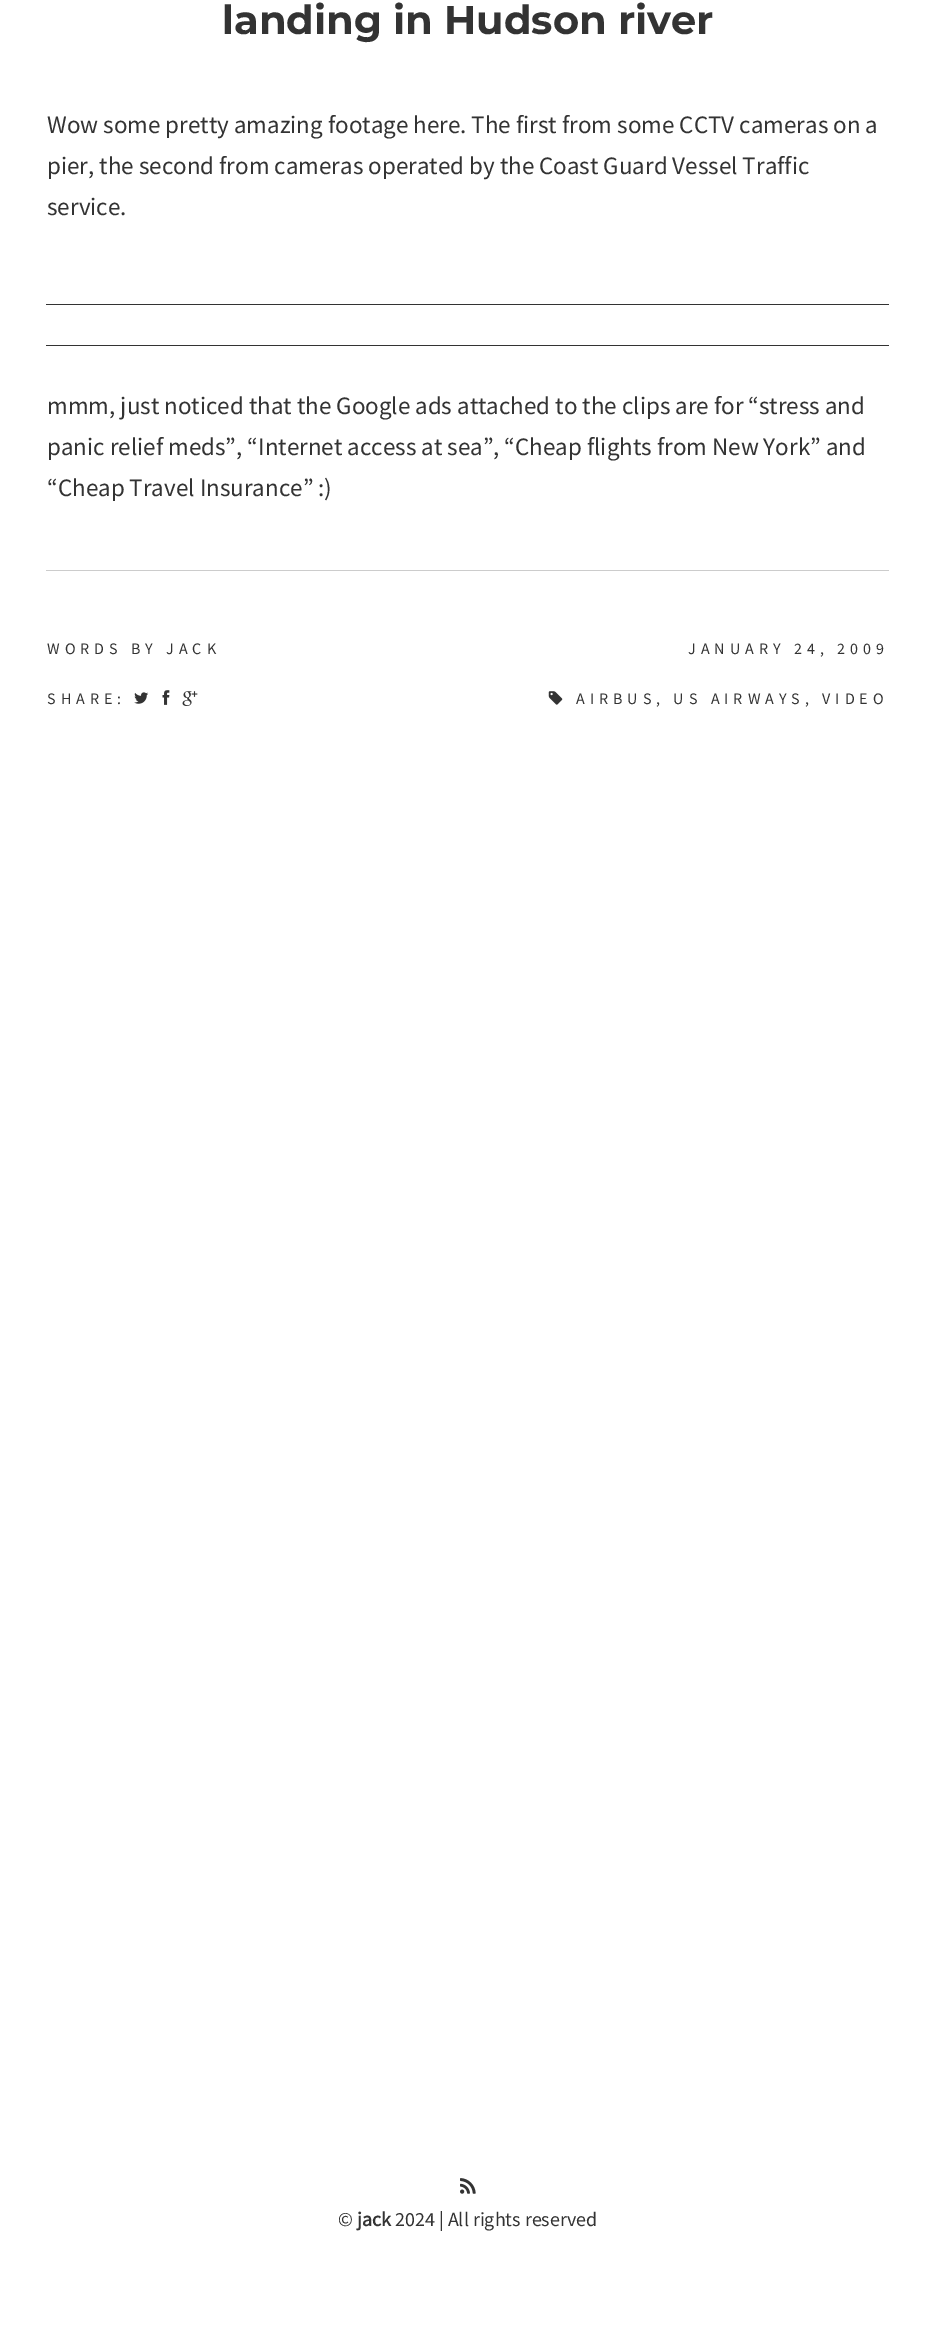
%!PS
<< /PageSize [935 2328] >> setpagedevice
/picture { 5 dict begin { /h /w /y /x /name } { exch def } forall
  gsave x y translate w h scale
  w h 8 [w 0 0 h 0 0] name (r) file false 3 colorimage grestore end } def
0 2328 translate 1 -1 scale
4 setmiterlimit
1 setgray
0 0 935 2328 rectfill
/Montserrat-Thin [40 0 0 -40 0 0] selectfont
0.2 setgray
222 34 moveto (landing in Hudson river) show
/SourceSansPro-Regular [25 0 0 -25 0 0] selectfont
47 133 moveto (Wow some pretty amazing footage here. The first from some CCTV cameras on a) show
47 174 moveto (pier, the second from cameras operated by the Coast Guard Vessel Traffic) show
47 215 moveto (service.) show
46 304 843 1 rectfill
46 345 843 1 rectfill
47 414 moveto (mmm, just noticed that the Google ads attached to the clips are for “stress and) show
47 455 moveto (panic relief meds”, “Internet access at sea”, “Cheap flights from New York” and) show
47 496 moveto (“Cheap Travel Insurance” :\)) show
0.8 setgray
46 570 843 1 rectfill
/SourceSansPro-Regular [16 0 0 -16 0 0] selectfont
0.2 setgray
47 654 moveto 5 0 (WORDS BY JACK) ashow
688 654 moveto 5 0 (JANUARY 24, 2009) ashow
47 704 moveto 5 0 (SHARE:) ashow
(img1.rgb) 134 692 15 12 picture
(img2.rgb) 162 690 8 15 picture
(img3.rgb) 182 691 16 15 picture
(img4.rgb) 548 691 15 14 picture
576 704 moveto 5 0 (AIRBUS, US AIRWAYS, VIDEO) ashow
(img5.rgb) 460 2178 16 16 picture
/SourceSansPro-Regular [20 0 0 -20 0 0] selectfont
338 2226 moveto (©) show
/SourceSansPro-Bold [20 0 0 -20 0 0] selectfont
357 2226 moveto (jack) show
/SourceSansPro-Regular [20 0 0 -20 0 0] selectfont
395 2226 moveto (2024 | All rights reserved) show
showpage
